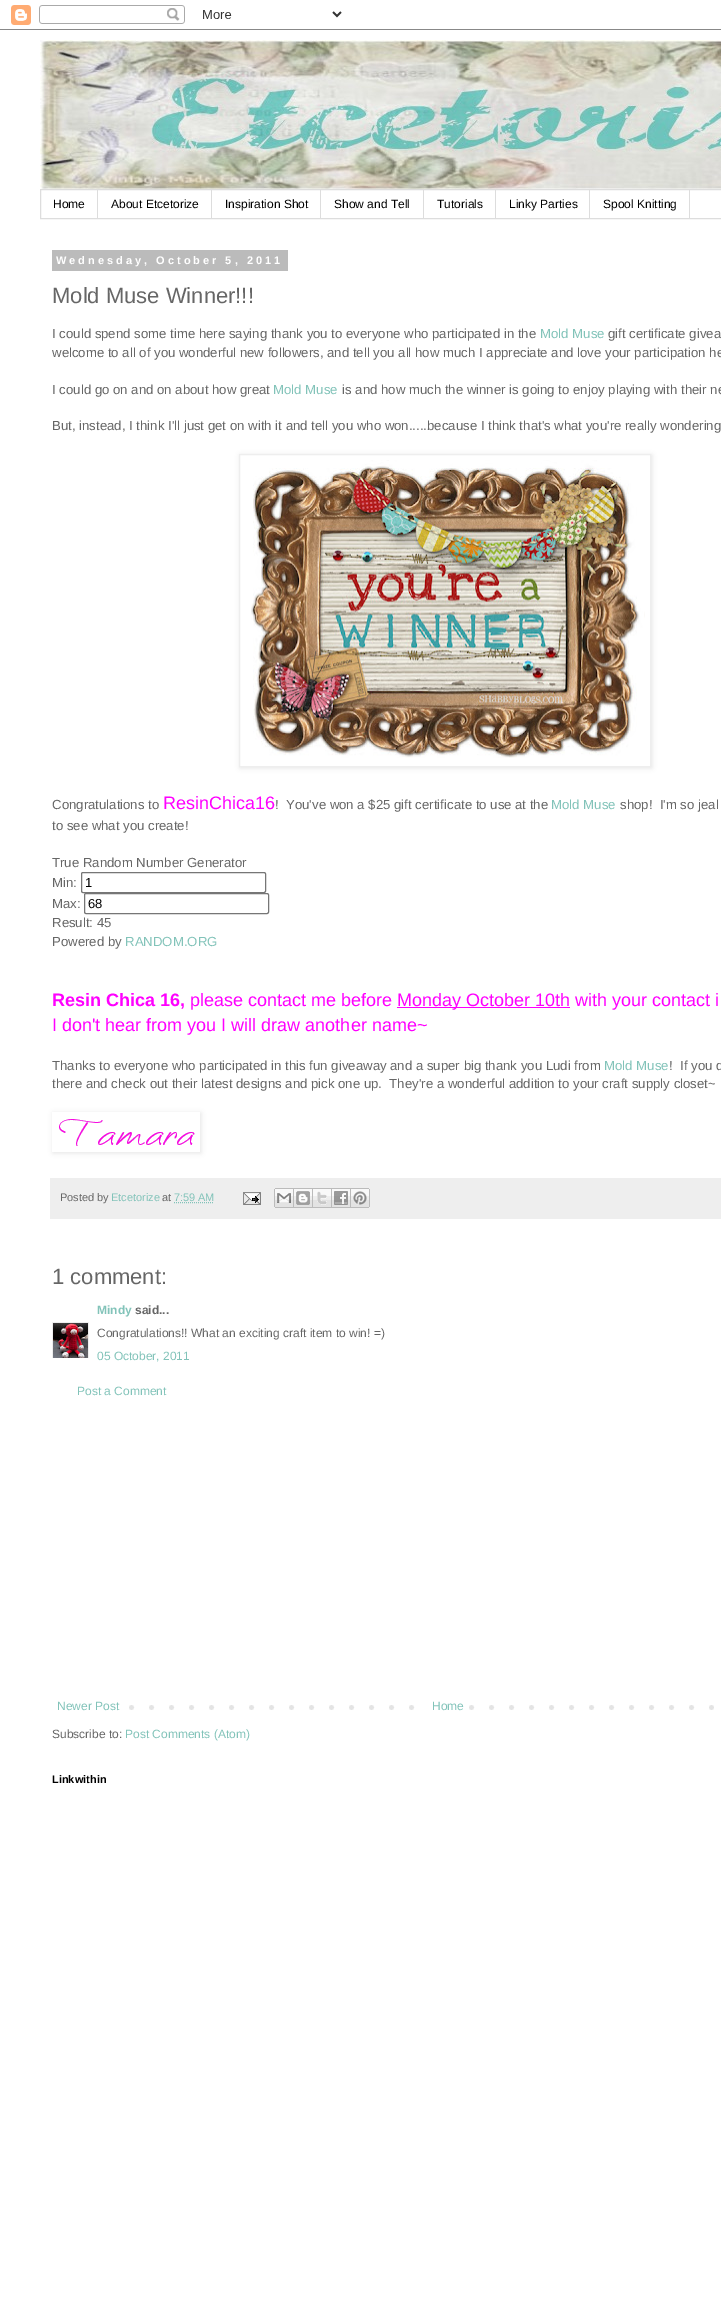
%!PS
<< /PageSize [721 2299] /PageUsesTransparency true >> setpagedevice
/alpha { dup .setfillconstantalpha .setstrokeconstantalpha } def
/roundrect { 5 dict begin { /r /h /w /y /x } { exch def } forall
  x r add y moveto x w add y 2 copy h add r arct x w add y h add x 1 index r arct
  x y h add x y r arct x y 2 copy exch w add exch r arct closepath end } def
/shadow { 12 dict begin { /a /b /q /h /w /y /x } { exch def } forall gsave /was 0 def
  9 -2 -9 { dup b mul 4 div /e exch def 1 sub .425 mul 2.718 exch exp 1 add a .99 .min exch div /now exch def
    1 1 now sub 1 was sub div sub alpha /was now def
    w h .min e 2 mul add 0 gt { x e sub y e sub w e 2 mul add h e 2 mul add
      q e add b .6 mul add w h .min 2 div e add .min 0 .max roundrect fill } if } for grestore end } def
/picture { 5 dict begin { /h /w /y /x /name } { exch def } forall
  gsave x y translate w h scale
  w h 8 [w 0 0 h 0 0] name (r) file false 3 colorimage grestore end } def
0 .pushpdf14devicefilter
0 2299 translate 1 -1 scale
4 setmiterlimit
1 setgray
0 0 721 2299 rectfill
(img1.rgb) 0 5 721 25 picture
(img2.rgb) 40 40 681 149 picture
0.867 setgray
40.5 189.5 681 29 rectstroke
97 190 1 28 rectfill
/LiberationSans-Regular [12 0 0 -12 0 0] selectfont
0 setgray
53 208 moveto (Home) show
0.867 setgray
211 190 1 28 rectfill
0 setgray
111 208 moveto (About Etcetorize) show
0.867 setgray
320 190 1 28 rectfill
0 setgray
225 208 moveto (Inspiration Shot) show
0.867 setgray
423 190 1 28 rectfill
0 setgray
334 208 moveto (Show and Tell) show
0.867 setgray
495 190 1 28 rectfill
0 setgray
437 208 moveto (Tutorials) show
0.867 setgray
589 190 1 28 rectfill
0 setgray
509 208 moveto (Linky Parties) show
0.867 setgray
689 190 1 28 rectfill
0 setgray
603 208 moveto (Spool Knitting) show
0.733 setgray
52 250 236 21 rectfill
/LiberationSans-Bold [11 0 0 -11 0 0] selectfont
1 setgray
56 264 moveto 3 0 (Wednesday, October 5, 2011) ashow
/LiberationSans-Regular [22 0 0 -22 0 0] selectfont
0.4 setgray
52 303 moveto (Mold Muse Winner!!!) show
/LiberationSans-Regular [13.2 0 0 -13.2 0 0] selectfont
52 338 moveto (I could spend some time here saying thank you to everyone who participated in the) show
0.51 0.765 0.725 setrgbcolor
540 338 moveto (Mold Muse) show
0.4 setgray
608 338 moveto (gift certificate givea) show
52 357 moveto (welcome to all of you wonderful new followers, and tell you all how much I appreciate and love your participation he) show
52 394 moveto (I could go on and on about how great) show
0.51 0.765 0.725 setrgbcolor
273 394 moveto (Mold Muse) show
0.4 setgray
342 394 moveto (is and how much the winner is going to enjoy playing with their ne) show
52 430 moveto (But, instead, I think I'll just get on with it and tell you who won.....because I think that's what you're really wondering) show
gsave
newpath 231 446 moveto 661 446 lineto 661 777 lineto 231 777 lineto closepath 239 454 moveto 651 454 lineto 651 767 lineto 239 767 lineto closepath eoclip newpath
0 setgray
240 455 412 313 0 2.5 0.1 shadow
grestore
0.933 setgray
239.5 454.5 411 312 rectstroke
(img3.rgb) 251 460 394 298 picture
0.4 setgray
52 809 moveto (Congratulations to) show
/LiberationSans-Regular [18 0 0 -18 0 0] selectfont
1 0 1 setrgbcolor
163 809 moveto (ResinChica16) show
/LiberationSans-Regular [13.2 0 0 -13.2 0 0] selectfont
0.4 setgray
275 809 moveto (!  You've won a $25 gift certificate to use at the) show
0.51 0.765 0.725 setrgbcolor
551 809 moveto (Mold Muse) show
0.4 setgray
620 809 moveto (shop!  I'm so jeal) show
52 830 moveto (to see what you create!) show
52 867 moveto (True Random Number Generator) show
52 887 moveto (Min:) show
0.463 setgray
81.5 872.5 184 20 1.5 roundrect stroke
/LiberationSans-Regular [13 0 0 -13 0 0] selectfont
0 setgray
85 887 moveto (1) show
/LiberationSans-Regular [13.2 0 0 -13.2 0 0] selectfont
0.4 setgray
52 908 moveto (Max:) show
0.463 setgray
84.5 893.5 184 20 1.5 roundrect stroke
/LiberationSans-Regular [13 0 0 -13 0 0] selectfont
0 setgray
88 908 moveto (68) show
/LiberationSans-Regular [13.2 0 0 -13.2 0 0] selectfont
0.4 setgray
52 927 moveto (Result: 45) show
52 946 moveto (Powered by) show
0.51 0.765 0.725 setrgbcolor
125 946 moveto (RANDOM.ORG) show
/LiberationSans-Bold [18 0 0 -18 0 0] selectfont
1 0 1 setrgbcolor
52 1006 moveto (Resin Chica 16,) show
/LiberationSans-Regular [18 0 0 -18 0 0] selectfont
190 1006 moveto (please contact me before) show
397 1007 173 1 rectfill
397 1006 moveto (Monday October 10th with your contact i) show
52 1031 moveto (I don't hear from you I will draw another name~) show
/LiberationSans-Regular [13.2 0 0 -13.2 0 0] selectfont
0.4 setgray
52 1070 moveto (Thanks to everyone who participated in this fun giveaway and a super big thank you Ludi from) show
0.51 0.765 0.725 setrgbcolor
604 1070 moveto (Mold Muse) show
0.4 setgray
669 1070 moveto (!  If you d) show
52 1088 moveto (there and check out their latest designs and pick one up.  They're a wonderful addition to your craft supply closet~) show
gsave
newpath 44 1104 moveto 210 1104 lineto 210 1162 lineto 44 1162 lineto closepath 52 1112 moveto 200 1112 lineto 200 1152 lineto 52 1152 lineto closepath eoclip newpath
0 setgray
53 1113 148 40 0 2.5 0.1 shadow
grestore
(img4.rgb) 59 1119 136 27 picture
0.933 setgray
50 1178 671 41 rectfill
/LiberationSans-Regular [11 0 0 -11 0 0] selectfont
0.4 setgray
60 1201 moveto (Posted by) show
0.51 0.765 0.725 setrgbcolor
111 1201 moveto (Etcetorize) show
0.4 setgray
162 1201 moveto (at) show
0.51 0.765 0.725 setrgbcolor
174 1201 moveto (7:59 AM) show
[1 1] 0 setdash
newpath 174 1202.5 moveto 213.5 1202.5 lineto stroke
(img5.rgb) 243 1192 18 13 picture
(img6.rgb) 274 1188 20 20 picture
(img7.rgb) 294 1188 19 20 picture
(img8.rgb) 313 1188 19 20 picture
(img9.rgb) 332 1188 19 20 picture
(img10.rgb) 351 1188 19 20 picture
/LiberationSans-Regular [22 0 0 -22 0 0] selectfont
0.4 setgray
52 1284 moveto (1 comment:) show
/LiberationSans-Bold [12 0 0 -12 0 0] selectfont
0.51 0.765 0.725 setrgbcolor
97 1314 moveto (Mindy) show
0.4 setgray
135 1314 moveto (said...) show
gsave
52 1322 37 36 rectclip
0.933 setgray
[] 0 setdash
52.5 1322.5 36 36 rectstroke
grestore
(img11.rgb) 53 1323 35 35 picture
/LiberationSans-Regular [12 0 0 -12 0 0] selectfont
97 1337 moveto (Congratulations!! What an exciting craft item to win! =\)) show
0.51 0.765 0.725 setrgbcolor
97 1360 moveto (05 October, 2011) show
77 1395 moveto (Post a Comment) show
(img12.rgb) 129 1705 585 5 picture
57 1710 moveto (Newer Post) show
1 setgray
429 1705 26 5 rectfill
0.51 0.765 0.725 setrgbcolor
432 1710 moveto (Home) show
0.4 setgray
52 1738 moveto (Subscribe to:) show
0.51 0.765 0.725 setrgbcolor
125 1738 moveto (Post Comments \(Atom\)) show
/LiberationSans-Bold [11 0 0 -11 0 0] selectfont
0 setgray
52 1783 moveto (Linkwithin) show
.poppdf14devicefilter showpage
